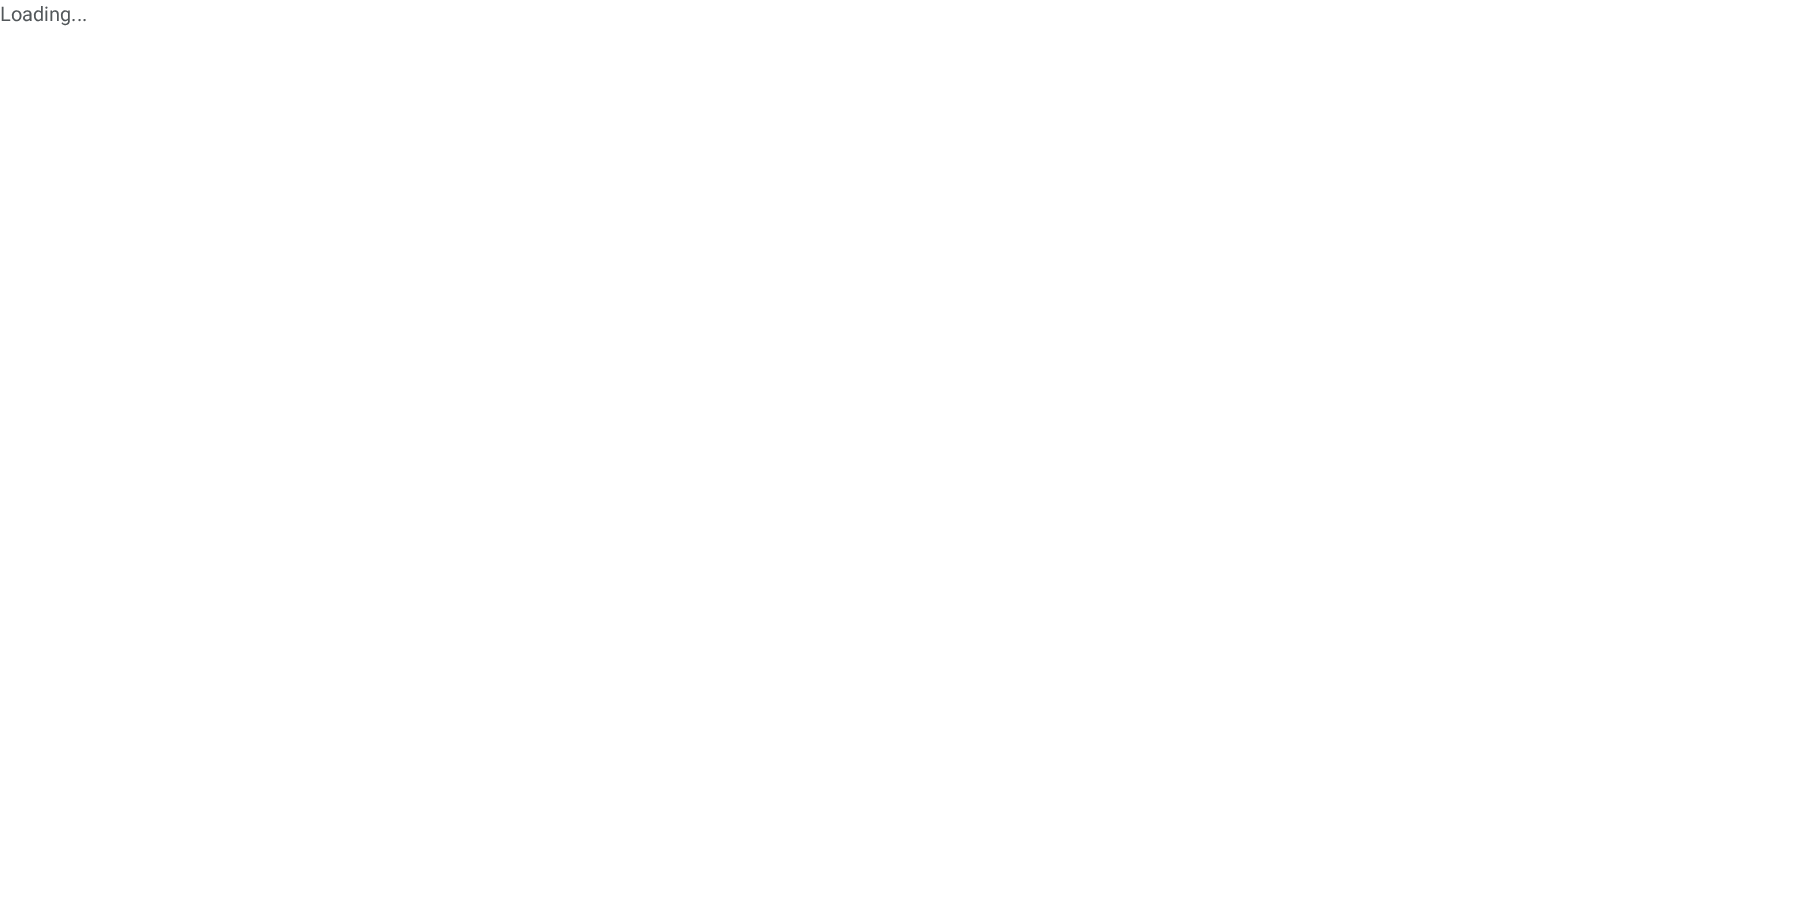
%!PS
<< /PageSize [1815 905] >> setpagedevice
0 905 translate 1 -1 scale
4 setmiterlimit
1 setgray
0 0 1815 905 rectfill
/Roboto-Regular [20 0 0 -20 0 0] selectfont
0.322 0.341 0.353 setrgbcolor
0 21 moveto (Loading...) show
showpage
